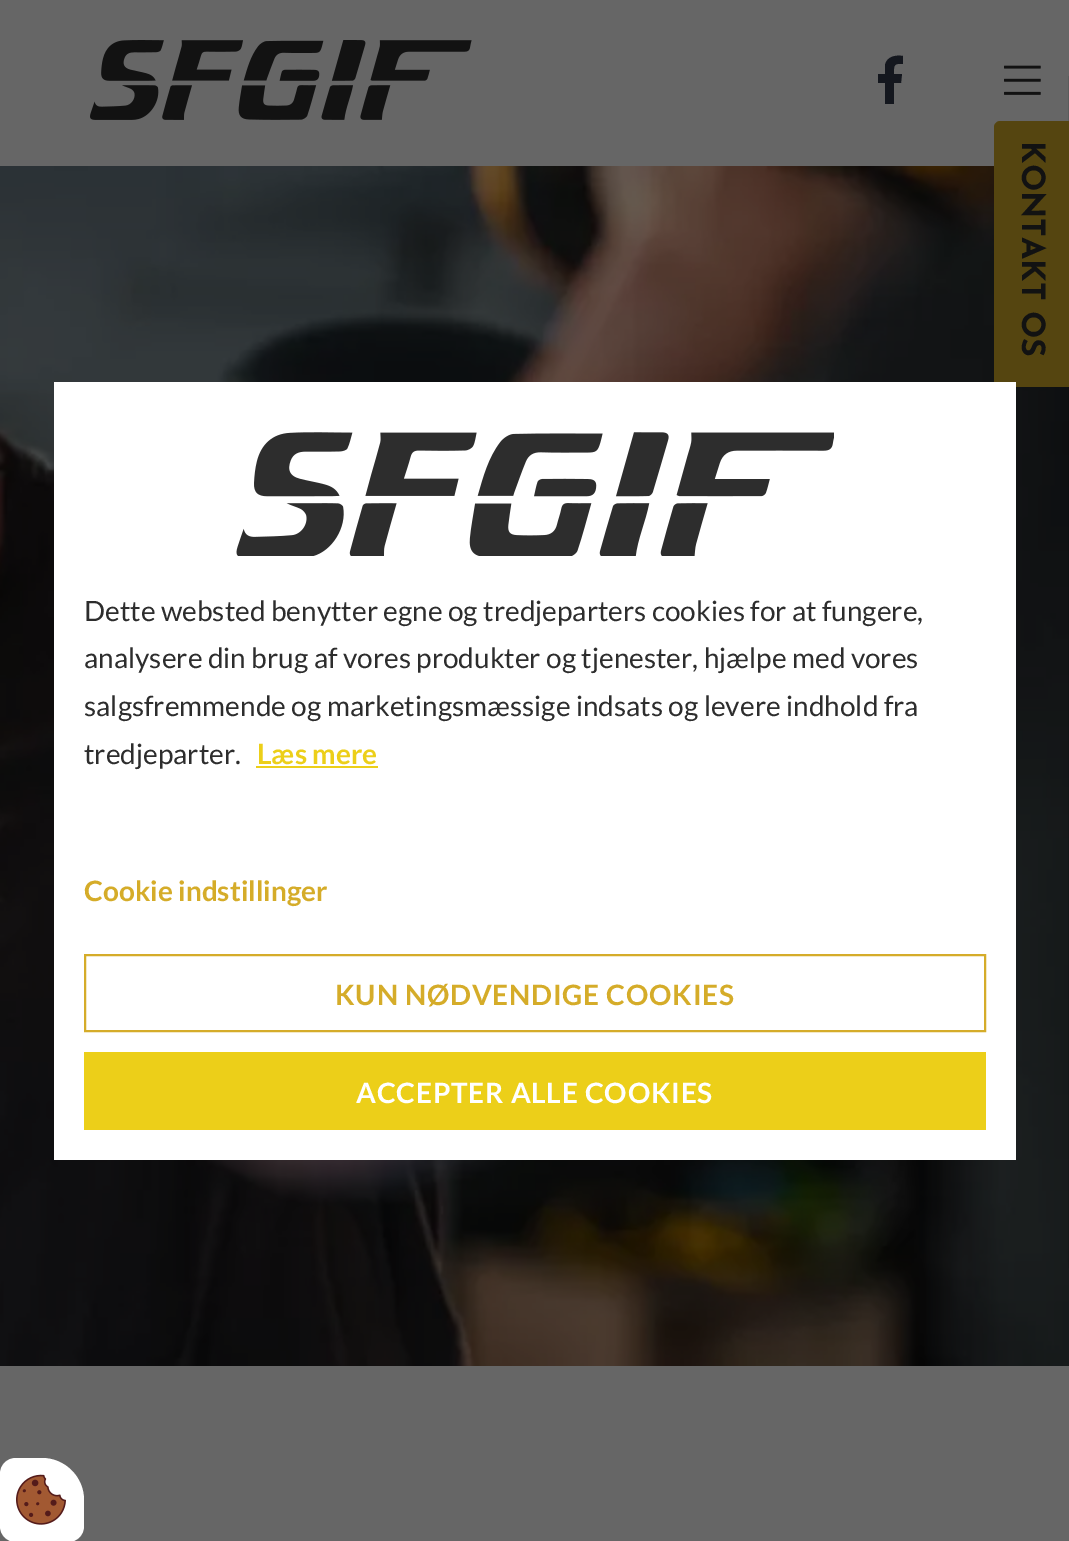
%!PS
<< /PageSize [1069 1541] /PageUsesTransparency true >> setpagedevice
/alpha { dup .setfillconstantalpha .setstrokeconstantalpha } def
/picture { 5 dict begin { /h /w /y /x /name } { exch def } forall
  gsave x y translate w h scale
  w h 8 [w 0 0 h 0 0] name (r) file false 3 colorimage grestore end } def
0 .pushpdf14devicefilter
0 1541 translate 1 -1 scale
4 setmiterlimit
0.4 setgray
0 0 1069 1541 rectfill
(img1.rgb) 90 40 382 80 picture
0.078 0.09 0.118 setrgbcolor
newpath 898 64 moveto 893 64 894 70 894 74 curveto 902 74 lineto 901 83 lineto 894 83 lineto 894 104 lineto 885 104 lineto 885 83 lineto 878 83 lineto 878 74 lineto 885 74 lineto 885 65 lineto 887 56 896 55 903 56 curveto 903 64 lineto closepath fill
(img2.rgb) 1004 65 37 30 picture
(img3.rgb) 0 166 1069 1200 picture
0.1 alpha
0 setgray
2 setlinewidth
1069 77 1 1190 rectstroke
1 alpha
0.333 0.271 0.063 setrgbcolor
newpath 994 381 moveto 994 127 lineto 994 124 997 121 1000 121 curveto 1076 121 lineto 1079 121 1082 124 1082 127 curveto 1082 381 lineto 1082 384 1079 387 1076 387 curveto 1000 387 lineto 997 387 994 384 994 381 curveto closepath fill
/JosefinSans-Thin [32 0 0 -32 0 0] selectfont
0.071 setgray
gsave 1022 141 translate 90 rotate 0 0 moveto (KONTAKT OS) show grestore
1 setgray
54 382 962 778 rectfill
(img4.rgb) 236 432 598 124 picture
/Lato-Regular [28 0 0 -28 0 0] selectfont
0.176 setgray
84 621 moveto (Dette websted benytter egne og tredjeparters cookies for at fungere,) show
84 668 moveto (analysere din brug af vores produkter og tjenester, hjælpe med vores) show
84 716 moveto (salgsfremmende og marketingsmæssige indsats og levere indhold fra) show
84 764 moveto (tredjeparter.) show
/Lato-Bold [28 0 0 -28 0 0] selectfont
0.925 0.812 0.098 setrgbcolor
257 764 moveto (Læs mere) show
256 766 122 2 rectfill
0.835 0.675 0.161 setrgbcolor
84 901 moveto (Cookie indstillinger) show
85 955 900 76 rectstroke
335 1005 moveto 0.8 0 (KUN NØDVENDIGE COOKIES) ashow
0.925 0.812 0.098 setrgbcolor
84 1052 902 78 rectfill
1 setgray
356 1103 moveto 0.8 0 (ACCEPTER ALLE COOKIES) ashow
newpath 16 1458 moveto 42 1458 lineto 65 1458 84 1477 84 1500 curveto 84 1526 lineto 84 1535 77 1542 68 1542 curveto 16 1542 lineto 7 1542 0 1535 0 1526 curveto 0 1474 lineto 0 1465 7 1458 16 1458 curveto closepath fill
(img5.rgb) 16 1474 50 51 picture
.poppdf14devicefilter showpage
